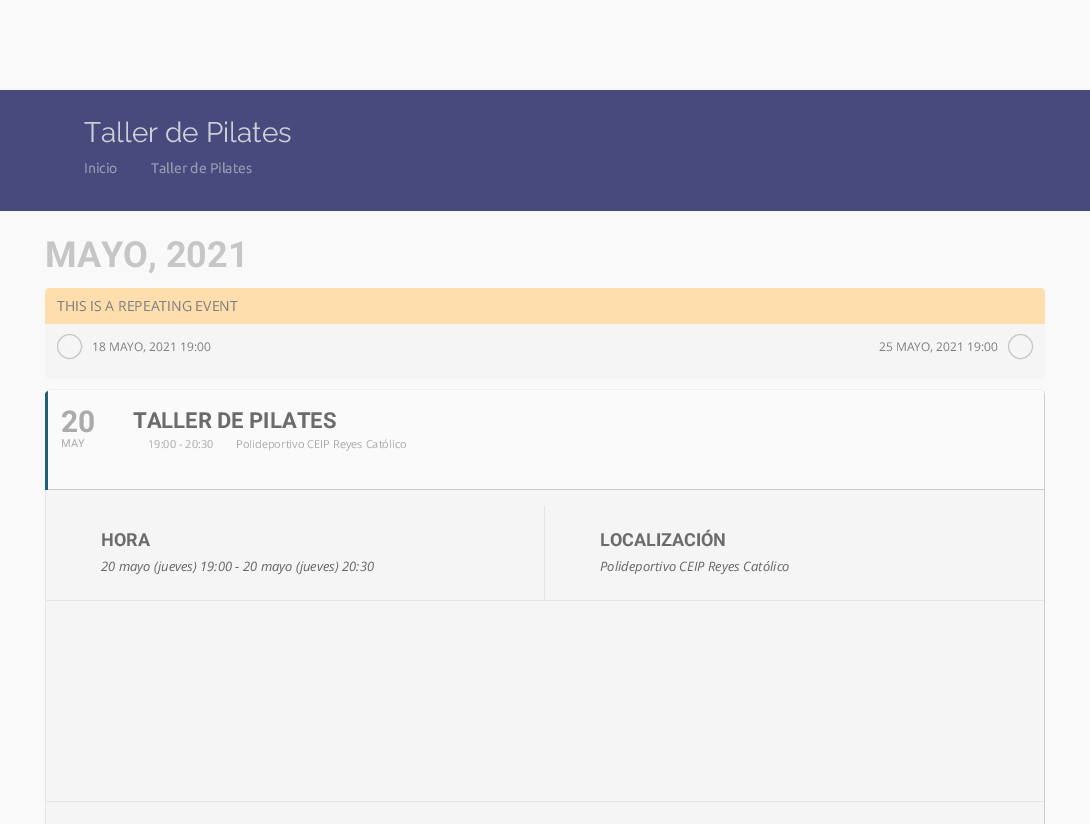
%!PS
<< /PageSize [1090 824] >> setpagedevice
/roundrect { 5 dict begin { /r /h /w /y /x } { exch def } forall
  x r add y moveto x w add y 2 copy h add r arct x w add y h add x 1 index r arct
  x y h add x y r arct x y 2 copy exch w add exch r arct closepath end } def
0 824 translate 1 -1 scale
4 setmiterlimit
0.976 setgray
0 0 1090 824 rectfill
0.282 0.29 0.49 setrgbcolor
0 90 1090 121 rectfill
/Raleway-Regular [28 0 0 -28 0 0] selectfont
0.808 0.812 0.839 setrgbcolor
84 142 moveto (Taller de Pilates) show
/Ubuntu-Regular [14 0 0 -14 0 0] selectfont
0.596 0.604 0.698 setrgbcolor
84 173 moveto (Inicio) show
151 173 moveto (Taller de Pilates) show
/Roboto-Bold [36 0 0 -36 0 0] selectfont
0.776 setgray
45 267 moveto (MAYO, 2021) show
0.961 setgray
45 288 1000 91 5 roundrect fill
1 0.871 0.682 setrgbcolor
newpath 50 288 moveto 1040 288 lineto 1043 288 1045 290 1045 293 curveto 1045 324 lineto 45 324 lineto 45 293 lineto 45 290 47 288 50 288 curveto closepath fill
/OpenSans-Regular [14 0 0 -14 0 0] selectfont
0.502 setgray
57 311 moveto (THIS IS A REPEATING EVENT) show
0.78 setgray
newpath 69.5 346.5 12 0 360 arc closepath stroke
/OpenSans-Regular [12 0 0 -12 0 0] selectfont
0.502 setgray
92 351 moveto (18 MAYO, 2021 19:00) show
879 351 moveto (25 MAYO, 2021 19:00) show
0.78 setgray
newpath 1020.5 346.5 12 0 360 arc closepath stroke
0.937 0.933 0.933 setrgbcolor
newpath 51 389 moveto 1039 389 lineto 1040 389 1042 390 1043 391 curveto 1042 390 1040 390 1039 390 curveto 51 390 lineto 48 390 45 392 45 395 curveto 45 392 48 389 51 389 curveto closepath fill
0.804 setgray
newpath 1043 391 moveto 1044 392 1044 394 1044 395 curveto 1044 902 lineto 1044 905 1042 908 1039 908 curveto 1042 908 1045 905 1045 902 curveto 1045 395 lineto 1045 394 1044 392 1043 391 curveto closepath fill
0.98 setgray
newpath 51 390 moveto 48 390 45 392 45 395 curveto 45 490 lineto 1044 490 lineto 1044 395 lineto 1044 392 1042 390 1039 390 curveto closepath fill
0.125 0.38 0.467 setrgbcolor
newpath 48 391 moveto 46 392 45 393 45 395 curveto 45 490 lineto 48 490 lineto closepath fill
/Roboto-Bold [30 0 0 -30 0 0] selectfont
0.671 setgray
61 432 moveto (20) show
/Roboto-Regular [11 0 0 -11 0 0] selectfont
61 447 moveto (MAY) show
/Roboto-Bold [22 0 0 -22 0 0] selectfont
0.42 setgray
133 428 moveto (TALLER DE PILATES) show
/OpenSans-Regular [11 0 0 -11 0 0] selectfont
0.671 setgray
148 448 moveto (19:00 - 20:30) show
236 448 moveto (Polideportivo CEIP Reyes Católico) show
0.804 setgray
48 489 996 1 rectfill
0.961 setgray
newpath 45 490 moveto 45 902 lineto 45 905 48 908 51 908 curveto 1039 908 lineto 1042 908 1044 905 1044 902 curveto 1044 490 lineto closepath fill
0.898 setgray
newpath 45 490 moveto 45 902 lineto 46 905 lineto 46 490 lineto closepath fill
46 600 998 1 rectfill
544 506 1 94 rectfill
/Roboto-Bold [18 0 0 -18 0 0] selectfont
0.42 setgray
101 546 moveto (HORA) show
/OpenSans-Italic [13 0 0 -13 0 0] selectfont
0.396 setgray
101 571 moveto (20 mayo \(jueves\) 19:00 - 20 mayo \(jueves\) 20:30) show
/Roboto-Bold [18 0 0 -18 0 0] selectfont
0.42 setgray
600 546 moveto (LOCALIZACIÓN) show
/OpenSans-Italic [13 0 0 -13 0 0] selectfont
0.396 setgray
600 571 moveto (Polideportivo CEIP Reyes Católico) show
0.898 setgray
46 801 998 1 rectfill
showpage
